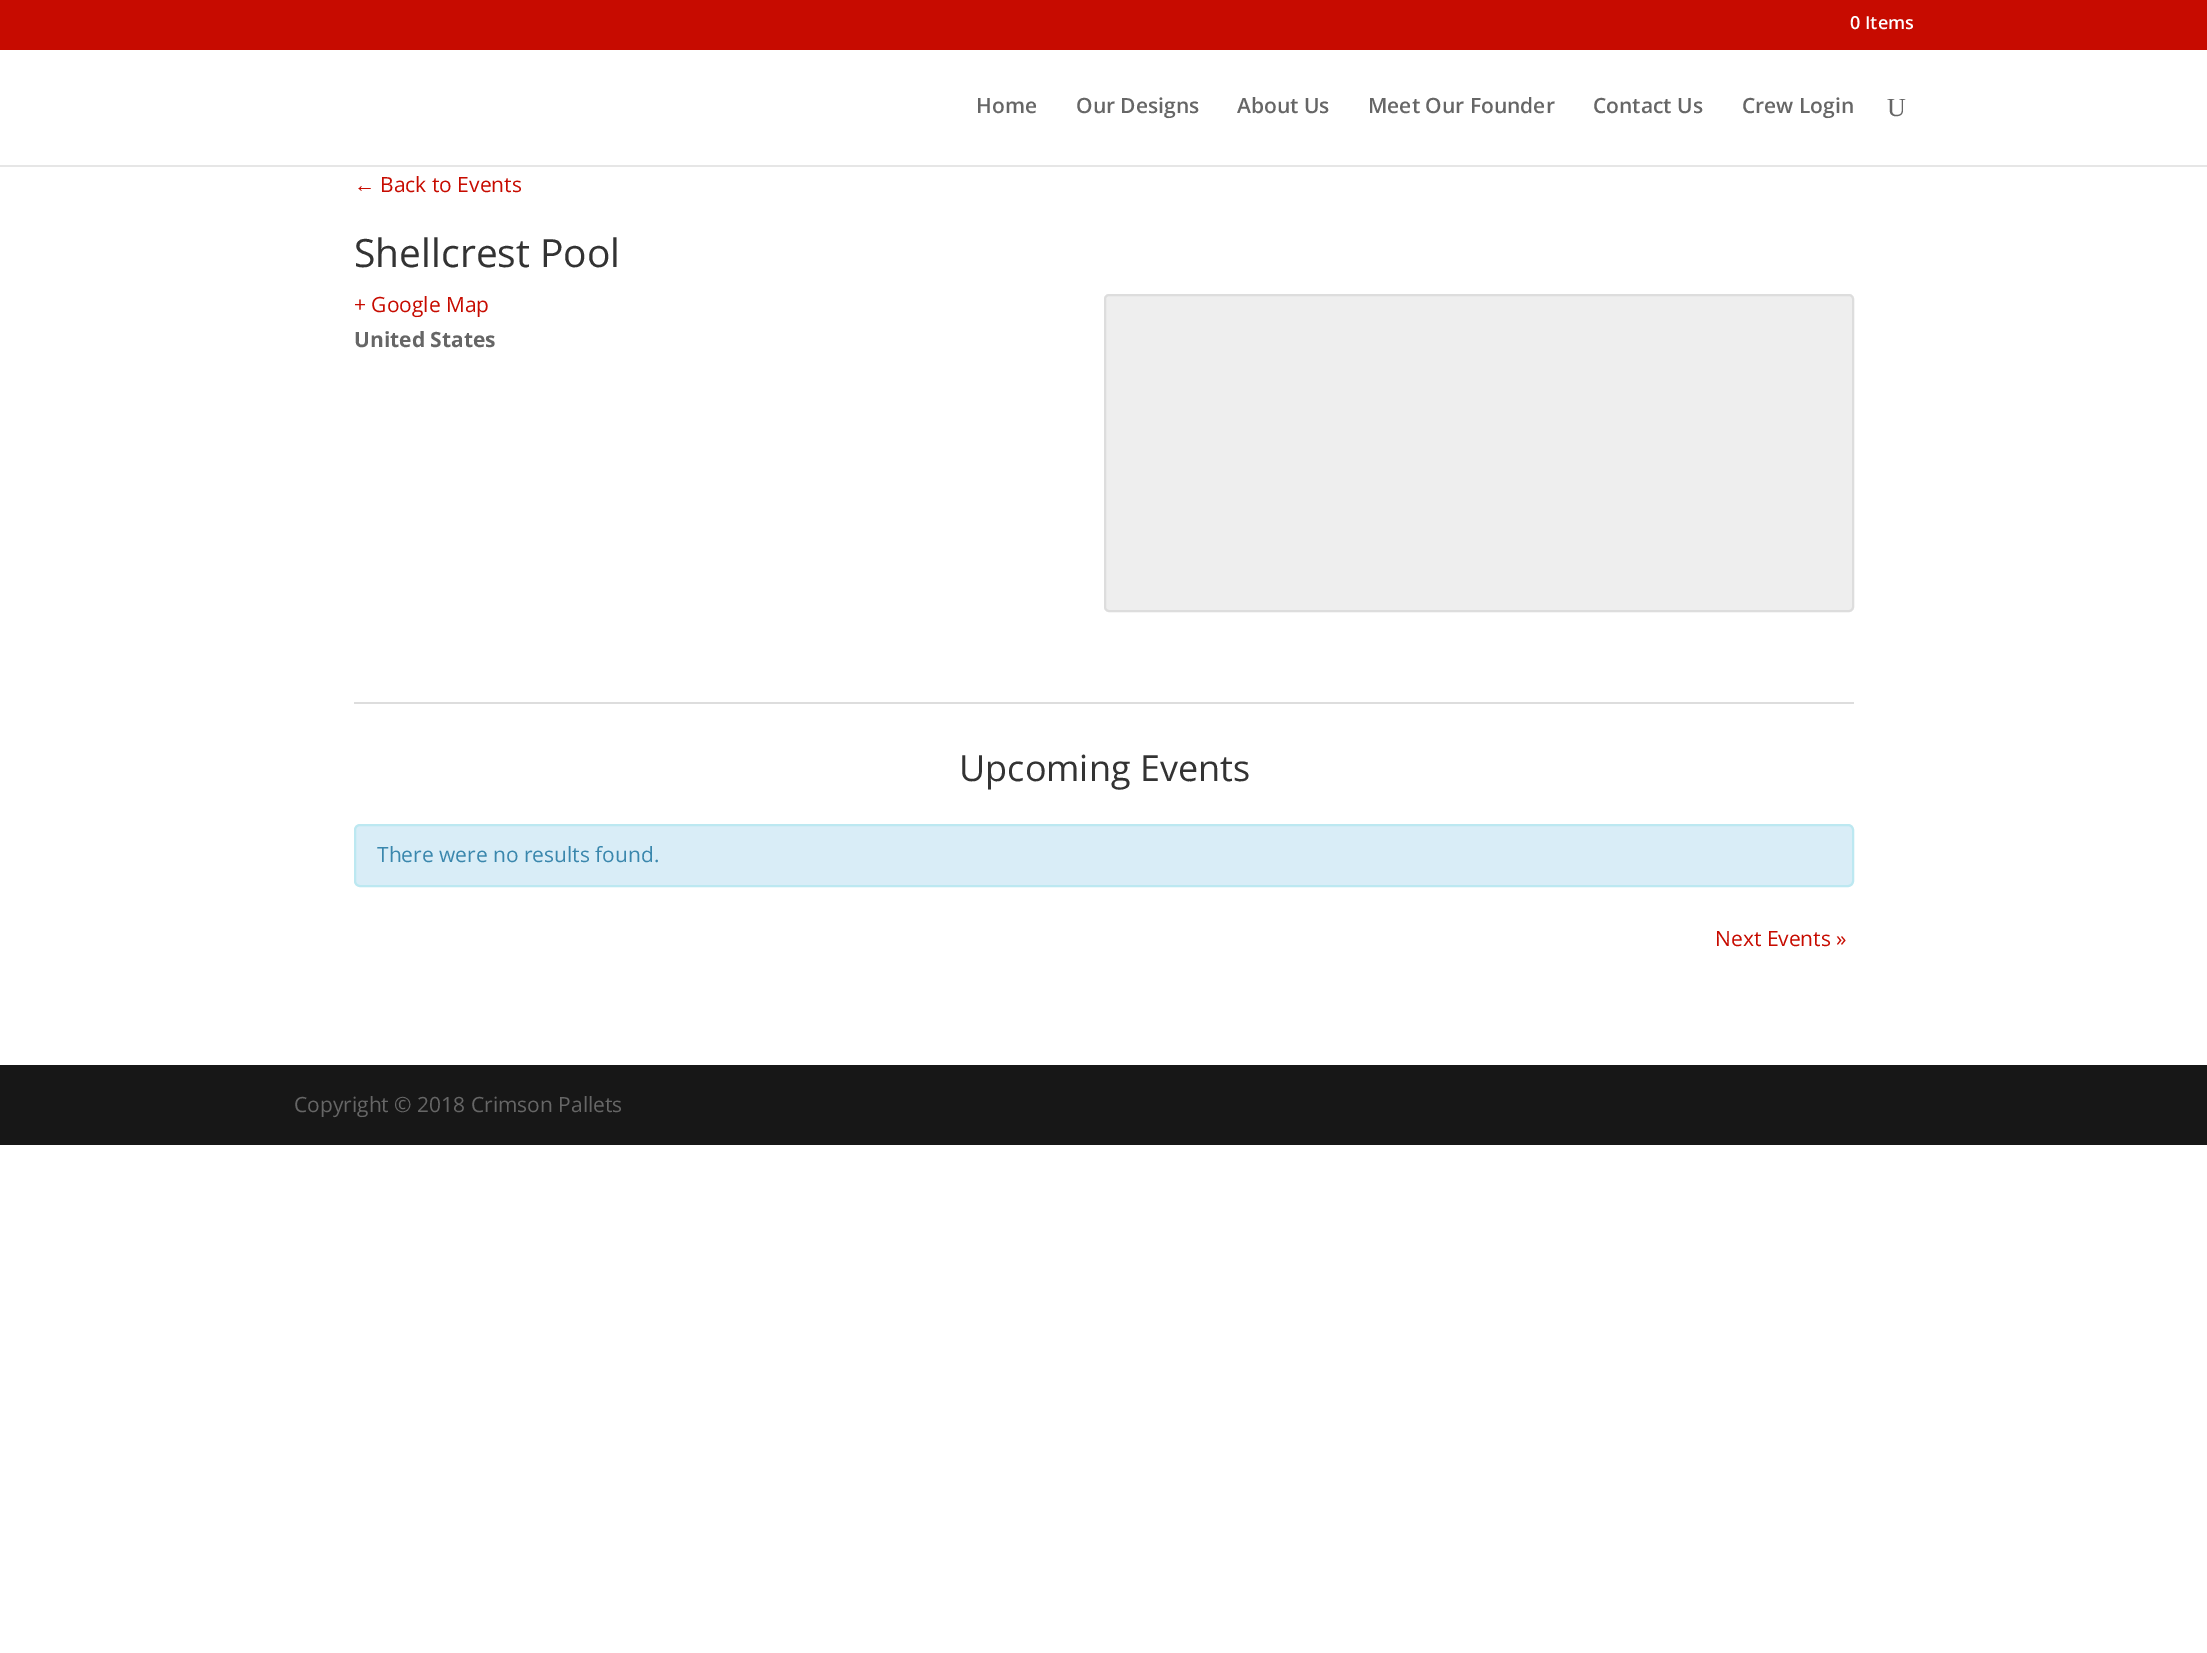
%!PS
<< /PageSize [2207 1653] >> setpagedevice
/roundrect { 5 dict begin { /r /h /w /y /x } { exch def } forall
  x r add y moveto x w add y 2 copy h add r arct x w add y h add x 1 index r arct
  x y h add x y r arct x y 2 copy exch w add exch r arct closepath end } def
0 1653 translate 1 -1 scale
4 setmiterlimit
1 setgray
0 0 2207 1653 rectfill
0.78 0.043 0 setrgbcolor
0 0 2207 50 rectfill
/OpenSans-SemiBold [18 0 0 -18 0 0] selectfont
1 setgray
1850 29 moveto (0 Items) show
0.902 setgray
0 165 2207 2 rectfill
/OpenSans-SemiBold [21 0 0 -21 0 0] selectfont
0.4 setgray
976 113 moveto (Home) show
1076 113 moveto (Our Designs) show
1237 113 moveto (About Us) show
1368 113 moveto (Meet Our Founder) show
1593 113 moveto (Contact Us) show
1742 113 moveto (Crew Login) show
/LiberationSerif-Regular [26 0 0 -26 0 0] selectfont
1887 116 moveto (U) show
/LiberationSans-Regular [21 0 0 -21 0 0] selectfont
0.78 0.043 0 setrgbcolor
354 192 moveto (←) show
/OpenSans-Regular [21 0 0 -21 0 0] selectfont
380 192 moveto (Back to Events) show
0.867 setgray
354 702 1500 2 rectfill
/OpenSans-Regular [39 0 0 -39 0 0] selectfont
0.2 setgray
354 267 moveto (Shellcrest Pool) show
/OpenSans-Regular [21 0 0 -21 0 0] selectfont
0.78 0.043 0 setrgbcolor
354 312 moveto (+ Google Map) show
/OpenSans-Bold [21 0 0 -21 0 0] selectfont
0.4 setgray
354 347 moveto (United States) show
0.933 setgray
1105 295 748 316 4 roundrect gsave fill grestore
0.867 setgray
2 setlinewidth
stroke
/OpenSans-Regular [36 0 0 -36 0 0] selectfont
0.2 setgray
959 781 moveto (Upcoming Events) show
0.851 0.929 0.969 setrgbcolor
355 825 1498 61 5 roundrect gsave fill grestore
0.737 0.91 0.945 setrgbcolor
stroke
/OpenSans-Regular [21 0 0 -21 0 0] selectfont
0.227 0.529 0.678 setrgbcolor
377 862 moveto (There were no results found.) show
0.78 0.043 0 setrgbcolor
1715 946 moveto (Next Events ») show
0.09 setgray
0 1065 2207 80 rectfill
0.4 setgray
294 1112 moveto (Copyright © 2018 Crimson Pallets) show
showpage
